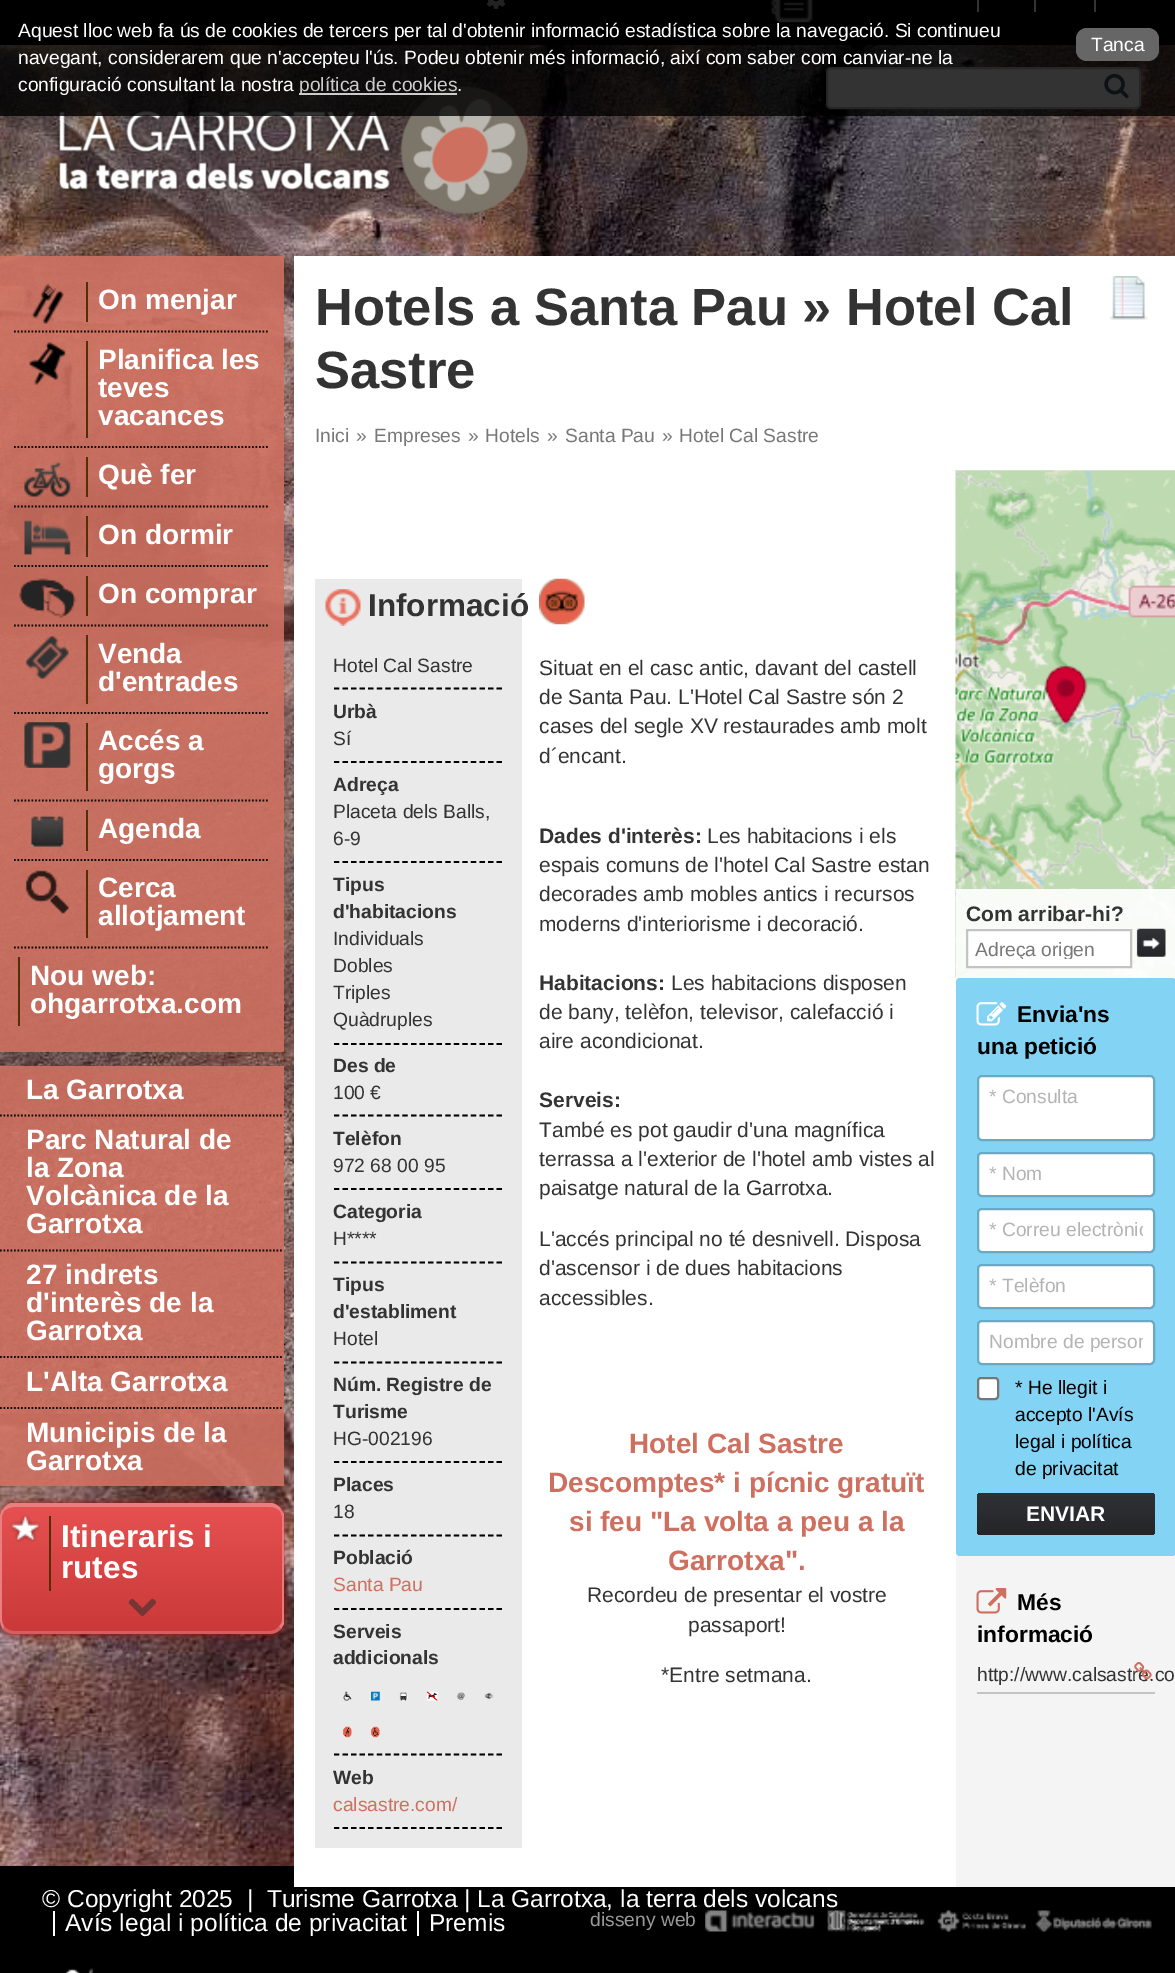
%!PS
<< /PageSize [1175 1973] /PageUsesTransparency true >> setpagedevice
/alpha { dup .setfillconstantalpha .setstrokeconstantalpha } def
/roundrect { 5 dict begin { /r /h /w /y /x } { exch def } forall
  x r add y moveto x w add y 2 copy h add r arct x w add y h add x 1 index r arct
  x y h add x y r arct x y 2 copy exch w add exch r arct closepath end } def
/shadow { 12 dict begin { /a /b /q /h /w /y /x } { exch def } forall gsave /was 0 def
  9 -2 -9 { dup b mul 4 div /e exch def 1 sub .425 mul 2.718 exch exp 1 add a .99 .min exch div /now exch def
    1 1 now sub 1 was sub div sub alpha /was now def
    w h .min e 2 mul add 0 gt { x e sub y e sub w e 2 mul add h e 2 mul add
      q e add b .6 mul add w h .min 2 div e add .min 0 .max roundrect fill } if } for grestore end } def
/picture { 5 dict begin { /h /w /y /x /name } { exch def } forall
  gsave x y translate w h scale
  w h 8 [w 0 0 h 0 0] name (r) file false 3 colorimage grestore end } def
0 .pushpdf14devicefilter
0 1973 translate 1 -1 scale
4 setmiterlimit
1 setgray
0 0 1175 1973 rectfill
(img1.rgb) 0 1413 294 453 picture
0 setgray
0 0 1175 45 rectfill
(img2.rgb) 486 0 20 9 picture
(img3.rgb) 771 0 42 23 picture
1 setgray
977 0 2 12 rectfill
1034 0 2 12 rectfill
1094 0 2 12 rectfill
(img4.rgb) 0 45 1175 1369 picture
(img5.rgb) 57 86 472 128 picture
827 68 313 40 4 roundrect gsave fill grestore
0.741 0.737 0.741 setrgbcolor
2 setlinewidth
stroke
(img6.rgb) 1104 73 25 26 picture
0.8 alpha
0 setgray
0 0 1175 116 rectfill
/LiberationSans-Regular [19.25 0 0 -19.25 0 0] selectfont
1 alpha
1 setgray
18 37 moveto (Aquest lloc web fa ús de cookies de tercers per tal d'obtenir informació estadística sobre la navegació. Si continueu) show
0.4 setgray
1076 28 83 33 11 roundrect fill
1 setgray
1091 51 moveto (Tanca) show
18 64 moveto (navegant, considerarem que n'accepteu l'ús. Podeu obtenir més informació, així com saber com canviar-ne la) show
18 91 moveto (configuració consultant la nostra) show
0.8 setgray
299 93 158 2 rectfill
299 91 moveto (política de cookies) show
1 setgray
457 91 moveto (.) show
0.9 alpha
0.808 0.439 0.376 setrgbcolor
0 256 284 796 rectfill
1 alpha
(img7.rgb) 31 283 33 41 picture
0.325 0.18 0.027 setrgbcolor
86 282 2 40 rectfill
/LiberationSans-Bold [28 0 0 -28 0 0] selectfont
1 setgray
98 309 moveto (On menjar) show
0.055 0.031 0.004 setrgbcolor
1.8 setlinewidth
[1.75 1.75] 0 setdash
newpath 14 331.5 moveto 269.5 331.5 lineto stroke
(img8.rgb) 29 342 37 43 picture
0.325 0.18 0.027 setrgbcolor
86 341 2 97 rectfill
1 setgray
98 369 moveto (Planifica les) show
98 397 moveto (teves) show
98 425 moveto (vacances) show
0.055 0.031 0.004 setrgbcolor
newpath 14 447 moveto 269.5 447 lineto stroke
(img9.rgb) 24 461 47 36 picture
0.325 0.18 0.027 setrgbcolor
86 457 2 40 rectfill
1 setgray
98 484 moveto (Què fer) show
0.055 0.031 0.004 setrgbcolor
newpath 14 506.5 moveto 269.5 506.5 lineto stroke
(img10.rgb) 24 520 47 35 picture
0.325 0.18 0.027 setrgbcolor
86 516 2 41 rectfill
1 setgray
98 544 moveto (On dormir) show
0.055 0.031 0.004 setrgbcolor
newpath 14 566 moveto 269.5 566 lineto stroke
(img11.rgb) 19 578 57 40 picture
0.325 0.18 0.027 setrgbcolor
86 576 2 40 rectfill
1 setgray
98 603 moveto (On comprar) show
0.055 0.031 0.004 setrgbcolor
newpath 14 625.5 moveto 269.5 625.5 lineto stroke
(img12.rgb) 25 636 44 43 picture
0.325 0.18 0.027 setrgbcolor
86 635 2 69 rectfill
1 setgray
98 663 moveto (Venda) show
98 691 moveto (d'entrades) show
0.055 0.031 0.004 setrgbcolor
newpath 14 713 moveto 269.5 713 lineto stroke
(img13.rgb) 24 722 47 46 picture
0.325 0.18 0.027 setrgbcolor
86 723 2 68 rectfill
1 setgray
98 750 moveto (Accés a) show
98 778 moveto (gorgs) show
0.055 0.031 0.004 setrgbcolor
newpath 14 800.5 moveto 269.5 800.5 lineto stroke
(img14.rgb) 31 816 33 31 picture
0.325 0.18 0.027 setrgbcolor
86 810 2 41 rectfill
1 setgray
98 838 moveto (Agenda) show
0.055 0.031 0.004 setrgbcolor
newpath 14 860 moveto 269.5 860 lineto stroke
(img15.rgb) 25 870 44 44 picture
0.325 0.18 0.027 setrgbcolor
86 870 2 68 rectfill
1 setgray
98 897 moveto (Cerca) show
98 925 moveto (allotjament) show
0.055 0.031 0.004 setrgbcolor
newpath 14 947.5 moveto 269.5 947.5 lineto stroke
0.325 0.18 0.027 setrgbcolor
18 957 2 69 rectfill
1 setgray
30 985 moveto (Nou web:) show
30 1013 moveto (ohgarrotxa.com) show
0.9 alpha
0.808 0.439 0.376 setrgbcolor
0 1066 284 420 rectfill
1 alpha
1 setgray
26 1099 moveto (La Garrotxa) show
0.055 0.031 0.004 setrgbcolor
newpath 0 1115.5 moveto 283.5 1115.5 lineto stroke
1 setgray
26 1149 moveto (Parc Natural de) show
26 1177 moveto (la Zona) show
26 1205 moveto (Volcànica de la) show
26 1233 moveto (Garrotxa) show
0.055 0.031 0.004 setrgbcolor
newpath 0 1250.5 moveto 283.5 1250.5 lineto stroke
1 setgray
26 1284 moveto (27 indrets) show
26 1312 moveto (d'interès de la) show
26 1340 moveto (Garrotxa) show
0.055 0.031 0.004 setrgbcolor
newpath 0 1357 moveto 283.5 1357 lineto stroke
1 setgray
26 1391 moveto (L'Alta Garrotxa) show
0.055 0.031 0.004 setrgbcolor
newpath 0 1408 moveto 283.5 1408 lineto stroke
1 setgray
26 1442 moveto (Municipis de la) show
26 1470 moveto (Garrotxa) show
0.541 0.098 0.098 setrgbcolor
0 1503 284 132 14 3.5 1 shadow
gsave newpath 14 1507 moveto 270 1507 lineto 276 1507 282 1511 282 1517 curveto 282 1620 lineto 282 1626 276 1631 270 1631 curveto 14 1631 lineto 7 1631 2 1626 2 1620 curveto 2 1517 lineto 2 1511 7 1507 14 1507 curveto closepath clip newpath
<< /ShadingType 2 /ColorSpace /DeviceRGB /Coords [142 1507 142 1631] /Extend [true true] /Function << /FunctionType 2 /Domain [0 1] /C0 [0.902 0.314 0.314] /C1 [0.792 0.224 0.224] /N 1 >> >> shfill grestore
0.918 0.498 0.498 setrgbcolor
newpath 14 1507 moveto 10 1507 6 1509 4 1511 curveto 3 1509 lineto 5 1506 8 1504 11 1503 curveto 272 1503 lineto 276 1504 279 1506 281 1509 curveto 280 1511 lineto 277 1508 274 1507 270 1507 curveto closepath fill
0.914 0.478 0.478 setrgbcolor
newpath 284 1624 moveto 281 1629 lineto 279 1626 lineto 281 1625 282 1622 282 1620 curveto 282 1517 lineto 282 1515 281 1513 280 1511 curveto 281 1509 lineto 284 1514 lineto closepath fill
0.839 0.369 0.369 setrgbcolor
newpath 281 1629 moveto 278 1632 274 1634 270 1634 curveto 14 1634 lineto 9 1634 5 1632 3 1629 curveto 4 1626 lineto 6 1629 10 1631 14 1631 curveto 270 1631 lineto 274 1631 277 1629 279 1626 curveto closepath fill
0.922 0.498 0.498 setrgbcolor
newpath 0 1517 moveto 0 1620 lineto 0 1623 1 1626 3 1629 curveto 4 1626 lineto 3 1625 2 1622 2 1620 curveto 2 1517 lineto 2 1515 3 1513 4 1511 curveto 3 1509 lineto 1 1511 0 1514 0 1517 curveto closepath fill
(img16.rgb) 10 1515 30 27 picture
0.325 0.18 0.027 setrgbcolor
49 1516 2 75 rectfill
/LiberationSans-Bold [31.5 0 0 -31.5 0 0] selectfont
1 setgray
61 1547 moveto (Itineraris i) show
61 1578 moveto (rutes) show
(img17.rgb) 128 1598 28 18 picture
0 setgray
0 1866 1175 107 rectfill
1 setgray
294 256 881 1631 rectfill
/LiberationSans-Bold [52.5 0 0 -52.5 0 0] selectfont
0.2 setgray
315 325 moveto (Hotels a Santa Pau » Hotel Cal) show
315 388 moveto (Sastre) show
(img18.rgb) 1109 276 39 44 picture
/LiberationSans-Regular [19.25 0 0 -19.25 0 0] selectfont
0.471 setgray
315 442 moveto (Inici) show
356 442 moveto (») show
374 442 moveto (Empreses) show
468 442 moveto (») show
485 442 moveto (Hotels) show
547 442 moveto (») show
565 442 moveto (Santa Pau) show
662 442 moveto (») show
679 442 moveto (Hotel Cal Sastre) show
0.918 setgray
315 579 207 1269 rectfill
(img19.rgb) 325 589 36 37 picture
/LiberationSans-Bold [31.5 0 0 -31.5 0 0] selectfont
0.2 setgray
368 616 moveto (Informació) show
0 setgray
[5.25 3.31] 0 setdash
newpath 334 688.5 moveto 502 688.5 lineto stroke
/LiberationSans-Regular [19.25 0 0 -19.25 0 0] selectfont
0.2 setgray
333 672 moveto (Hotel Cal Sastre) show
0 setgray
newpath 334 762 moveto 502 762 lineto stroke
/LiberationSans-Bold [19.25 0 0 -19.25 0 0] selectfont
0.2 setgray
333 718 moveto (Urbà) show
/LiberationSans-Regular [19.25 0 0 -19.25 0 0] selectfont
333 745 moveto (Sí) show
0 setgray
newpath 334 862 moveto 502 862 lineto stroke
/LiberationSans-Bold [19.25 0 0 -19.25 0 0] selectfont
0.2 setgray
333 791 moveto (Adreça) show
/LiberationSans-Regular [19.25 0 0 -19.25 0 0] selectfont
333 818 moveto (Placeta dels Balls,) show
333 845 moveto (6-9) show
0 setgray
newpath 334 1044 moveto 502 1044 lineto stroke
/LiberationSans-Bold [19.25 0 0 -19.25 0 0] selectfont
0.2 setgray
333 891 moveto (Tipus) show
333 918 moveto (d'habitacions) show
/LiberationSans-Regular [19.25 0 0 -19.25 0 0] selectfont
333 945 moveto (Individuals) show
333 972 moveto (Dobles) show
333 999 moveto (Triples) show
333 1026 moveto (Quàdruples) show
0 setgray
newpath 334 1115.5 moveto 502 1115.5 lineto stroke
/LiberationSans-Bold [19.25 0 0 -19.25 0 0] selectfont
0.2 setgray
333 1072 moveto (Des de) show
/LiberationSans-Regular [19.25 0 0 -19.25 0 0] selectfont
333 1099 moveto (100 €) show
0 setgray
newpath 334 1189 moveto 502 1189 lineto stroke
/LiberationSans-Bold [19.25 0 0 -19.25 0 0] selectfont
0.2 setgray
333 1145 moveto (Telèfon) show
/LiberationSans-Regular [19.25 0 0 -19.25 0 0] selectfont
333 1172 moveto (972 68 00 95) show
0 setgray
newpath 334 1262.5 moveto 502 1262.5 lineto stroke
/LiberationSans-Bold [19.25 0 0 -19.25 0 0] selectfont
0.2 setgray
333 1218 moveto (Categoria) show
/LiberationSans-Regular [19.25 0 0 -19.25 0 0] selectfont
333 1245 moveto (H****) show
0 setgray
newpath 334 1362.5 moveto 502 1362.5 lineto stroke
/LiberationSans-Bold [19.25 0 0 -19.25 0 0] selectfont
0.2 setgray
333 1291 moveto (Tipus) show
333 1318 moveto (d'establiment) show
/LiberationSans-Regular [19.25 0 0 -19.25 0 0] selectfont
333 1345 moveto (Hotel) show
0 setgray
newpath 334 1462 moveto 502 1462 lineto stroke
/LiberationSans-Bold [19.25 0 0 -19.25 0 0] selectfont
0.2 setgray
333 1391 moveto (Núm. Registre de) show
333 1418 moveto (Turisme) show
/LiberationSans-Regular [19.25 0 0 -19.25 0 0] selectfont
333 1445 moveto (HG-002196) show
0 setgray
newpath 334 1535.5 moveto 502 1535.5 lineto stroke
/LiberationSans-Bold [19.25 0 0 -19.25 0 0] selectfont
0.2 setgray
333 1491 moveto (Places) show
/LiberationSans-Regular [19.25 0 0 -19.25 0 0] selectfont
333 1518 moveto (18) show
0 setgray
newpath 334 1609 moveto 502 1609 lineto stroke
/LiberationSans-Bold [19.25 0 0 -19.25 0 0] selectfont
0.2 setgray
333 1564 moveto (Població) show
/LiberationSans-Regular [19.25 0 0 -19.25 0 0] selectfont
0.808 0.439 0.376 setrgbcolor
333 1591 moveto (Santa Pau) show
0 setgray
newpath 334 1754.5 moveto 502 1754.5 lineto stroke
/LiberationSans-Bold [19.25 0 0 -19.25 0 0] selectfont
0.2 setgray
333 1638 moveto (Serveis) show
333 1664 moveto (addicionals) show
(img20.rgb) 343 1691 9 10 picture
(img21.rgb) 371 1691 9 10 picture
(img22.rgb) 399 1692 9 9 picture
(img23.rgb) 427 1691 11 10 picture
(img24.rgb) 456 1692 9 8 picture
(img25.rgb) 484 1692 10 8 picture
(img26.rgb) 343 1726 9 12 picture
(img27.rgb) 371 1726 9 12 picture
0 setgray
newpath 334 1828 moveto 502 1828 lineto stroke
0.2 setgray
333 1784 moveto (Web) show
/LiberationSans-Regular [19.25 0 0 -19.25 0 0] selectfont
0.808 0.439 0.376 setrgbcolor
333 1811 moveto (calsastre.com/) show
(img28.rgb) 539 578 46 47 picture
/LiberationSans-Regular [21 0 0 -21 0 0] selectfont
0.2 setgray
539 675 moveto (Situat en el casc antic, davant del castell) show
539 704 moveto (de Santa Pau. L'Hotel Cal Sastre són 2) show
539 733 moveto (cases del segle XV restaurades amb molt) show
539 763 moveto (d´encant.) show
/LiberationSans-Bold [21 0 0 -21 0 0] selectfont
539 843 moveto (Dades d'interès:) show
/LiberationSans-Regular [21 0 0 -21 0 0] selectfont
707 843 moveto (Les habitacions i els) show
539 872 moveto (espais comuns de l'hotel Cal Sastre estan) show
539 901 moveto (decorades amb mobles antics i recursos) show
539 931 moveto (moderns d'interiorisme i decoració.) show
/LiberationSans-Bold [21 0 0 -21 0 0] selectfont
539 990 moveto (Habitacions:) show
/LiberationSans-Regular [21 0 0 -21 0 0] selectfont
671 990 moveto (Les habitacions disposen) show
539 1019 moveto (de bany, telèfon, televisor, calefacció i) show
539 1048 moveto (aire acondicionat.) show
/LiberationSans-Bold [21 0 0 -21 0 0] selectfont
539 1107 moveto (Serveis:) show
/LiberationSans-Regular [21 0 0 -21 0 0] selectfont
539 1137 moveto (També es pot gaudir d'una magnífica) show
539 1166 moveto (terrassa a l'exterior de l'hotel amb vistes al) show
539 1195 moveto (paisatge natural de la Garrotxa.) show
539 1246 moveto (L'accés principal no té desnivell. Disposa) show
539 1275 moveto (d'ascensor i de dues habitacions) show
539 1305 moveto (accessibles.) show
/LiberationSans-Bold [28 0 0 -28 0 0] selectfont
0.808 0.439 0.376 setrgbcolor
629 1453 moveto (Hotel Cal Sastre) show
548 1492 moveto (Descomptes* i pícnic gratuït) show
569 1531 moveto (si feu "La volta a peu a la) show
668 1570 moveto (Garrotxa".) show
/LiberationSans-Regular [21 0 0 -21 0 0] selectfont
0.2 setgray
587 1602 moveto (Recordeu de presentar el vostre) show
688 1632 moveto (passaport!) show
661 1682 moveto (*Entre setmana.) show
0.957 setgray
956 977 219 910 rectfill
(img29.rgb) 955 470 220 508 picture
0.9 alpha
1 setgray
956 889 219 89 rectfill
/LiberationSans-Bold [21 0 0 -21 0 0] selectfont
1 alpha
0.2 setgray
966 921 moveto (Com arribar-hi?) show
1 setgray
newpath 967 930 moveto 1131 930 lineto 1131 967 lineto 967 967 lineto closepath gsave fill grestore
0.765 setgray
2 setlinewidth
[] 0 setdash
stroke
gsave
975 938 149 21 rectclip
/LiberationSans-Regular [19.25 0 0 -19.25 0 0] selectfont
0.471 setgray
975 956 moveto (Adreça origen) show
grestore
(img30.rgb) 1136 928 30 29 picture
0.514 0.827 0.961 setrgbcolor
956 978 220 578 4 roundrect fill
(img31.rgb) 976 1002 31 24 picture
/LiberationSans-Bold [22.75 0 0 -22.75 0 0] selectfont
0 setgray
1017 1022 moveto (Envia'ns) show
977 1054 moveto (una petició) show
1 setgray
978 1076 176 64 4 roundrect gsave fill grestore
0.412 0.663 0.769 setrgbcolor
stroke
/LiberationSans-Regular [19.25 0 0 -19.25 0 0] selectfont
0.706 setgray
989 1103 moveto (* Consulta) show
1 setgray
978 1153 176 43 4 roundrect gsave fill grestore
0.412 0.663 0.769 setrgbcolor
stroke
0.706 setgray
989 1180 moveto (* Nom) show
1 setgray
978 1209 176 43 4 roundrect gsave fill grestore
0.412 0.663 0.769 setrgbcolor
stroke
gsave
989 1220 154 21 rectclip
0.706 setgray
989 1236 moveto (* Correu electrònic) show
grestore
1 setgray
978 1265 176 43 4 roundrect gsave fill grestore
0.412 0.663 0.769 setrgbcolor
stroke
0.706 setgray
989 1292 moveto (* Telèfon) show
1 setgray
978 1321 176 43 4 roundrect gsave fill grestore
0.412 0.663 0.769 setrgbcolor
stroke
gsave
989 1332 154 21 rectclip
0.706 setgray
989 1348 moveto (Nombre de person) show
grestore
1 setgray
978 1378 20 21 3 roundrect gsave fill grestore
0.463 setgray
stroke
0 setgray
1015 1394 moveto (* He llegit i) show
1015 1421 moveto (accepto l'Avís) show
1015 1448 moveto (legal i política) show
1015 1475 moveto (de privacitat) show
gsave 977 1493 178 42 4 roundrect clip newpath
<< /ShadingType 2 /ColorSpace /DeviceRGB /Coords [1066 1493 1066 1535] /Extend [true true] /Function << /FunctionType 2 /Domain [0 1] /C0 [0.184 0.2 0.212] /C1 [0.145 0.141 0.161] /N 1 >> >> shfill grestore
/LiberationSans-Bold [21 0 0 -21 0 0] selectfont
1 setgray
1026 1521 moveto (ENVIAR) show
(img32.rgb) 976 1588 31 26 picture
/LiberationSans-Bold [22.75 0 0 -22.75 0 0] selectfont
0 setgray
1017 1610 moveto (Més) show
977 1642 moveto (informació) show
0.765 setgray
977 1692 178 2 rectfill
/LiberationSans-Regular [19.25 0 0 -19.25 0 0] selectfont
0.2 setgray
977 1681 moveto (http://www.calsastre.co) show
(img33.rgb) 1134 1661 18 19 picture
/LiberationSans-Regular [24.5 0 0 -24.5 0 0] selectfont
1 setgray
42 1907 moveto (© Copyright 2025  |  Turisme Garrotxa | La Garrotxa, la terra dels volcans) show
53 1911 2 25 rectfill
65 1931 moveto (Avís legal i política de privacitat) show
417 1911 2 25 rectfill
429 1931 moveto (Premis) show
/LiberationSans-Regular [19.25 0 0 -19.25 0 0] selectfont
0.6 setgray
590 1926 moveto (disseny web) show
(img34.rgb) 705 1910 447 22 picture
(img35.rgb) 66 1968 28 5 picture
.poppdf14devicefilter showpage
